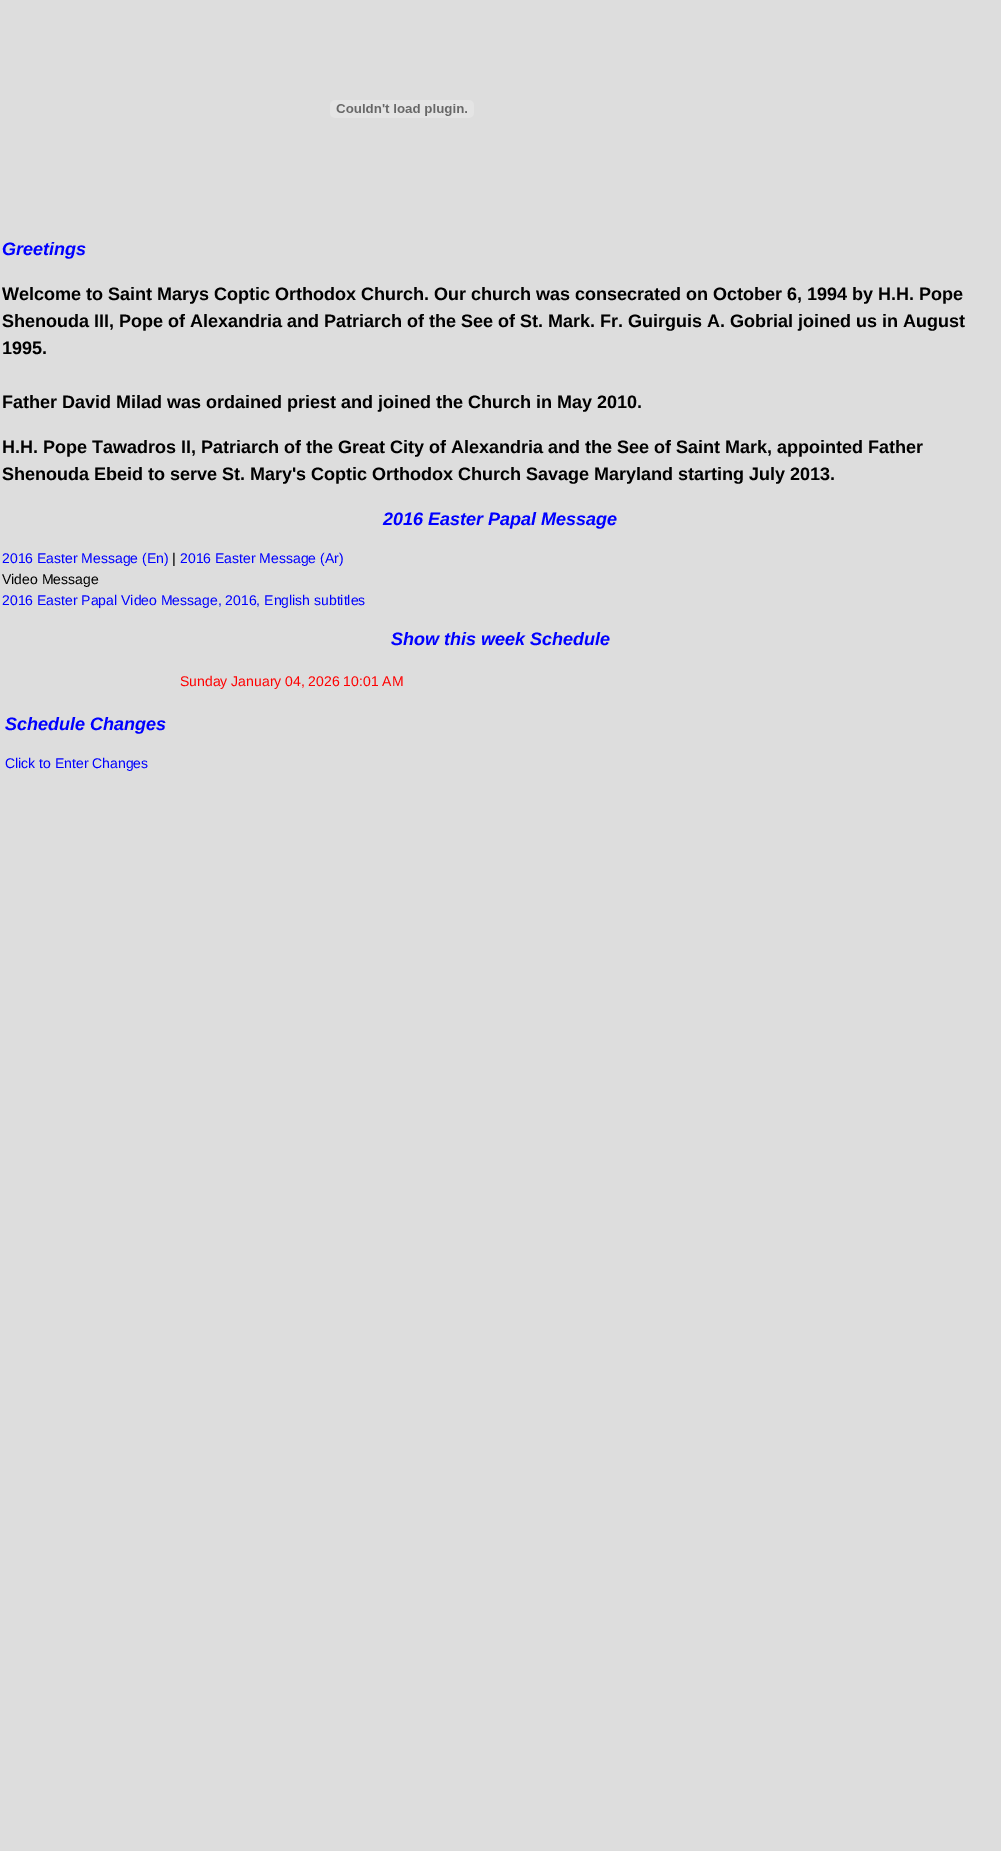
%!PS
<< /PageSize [1001 1851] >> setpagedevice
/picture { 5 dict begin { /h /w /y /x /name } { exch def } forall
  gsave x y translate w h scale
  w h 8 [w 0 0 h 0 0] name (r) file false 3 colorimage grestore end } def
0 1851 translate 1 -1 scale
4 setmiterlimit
0.867 setgray
0 0 1001 1851 rectfill
(img1.rgb) 330 100 144 18 picture
/LiberationSans-BoldItalic [18 0 0 -18 0 0] selectfont
0 0 1 setrgbcolor
2 255 moveto (Greetings) show
/LiberationSans-Bold [18 0 0 -18 0 0] selectfont
0 setgray
2 300 moveto (Welcome to Saint Marys Coptic Orthodox Church. Our church was consecrated on October 6, 1994 by H.H. Pope) show
2 327 moveto (Shenouda III, Pope of Alexandria and Patriarch of the See of St. Mark. Fr. Guirguis A. Gobrial joined us in August) show
2 354 moveto (1995.) show
2 408 moveto (Father David Milad was ordained priest and joined the Church in May 2010.) show
2 453 moveto (H.H. Pope Tawadros II, Patriarch of the Great City of Alexandria and the See of Saint Mark, appointed Father) show
2 480 moveto (Shenouda Ebeid to serve St. Mary's Coptic Orthodox Church Savage Maryland starting July 2013.) show
/LiberationSans-BoldItalic [18 0 0 -18 0 0] selectfont
0 0 1 setrgbcolor
383 525 moveto (2016 Easter Papal Message) show
/LiberationSans-Regular [14 0 0 -14 0 0] selectfont
2 563 moveto (2016 Easter Message \(En\)) show
0 setgray
172 563 moveto (|) show
0 0 1 setrgbcolor
180 563 moveto (2016 Easter Message \(Ar\)) show
0 setgray
2 584 moveto (Video Message) show
0 0 1 setrgbcolor
2 605 moveto (2016 Easter Papal Video Message, 2016, English subtitles) show
/LiberationSans-BoldItalic [18 0 0 -18 0 0] selectfont
391 645 moveto (Show this week Schedule) show
/LiberationSans-Regular [14 0 0 -14 0 0] selectfont
1 0 0 setrgbcolor
180 686 moveto (Sunday January 04, 2026 10:01 AM) show
/LiberationSans-BoldItalic [18 0 0 -18 0 0] selectfont
0 0 1 setrgbcolor
5 730 moveto (Schedule Changes) show
/LiberationSans-Regular [14 0 0 -14 0 0] selectfont
5 768 moveto (Click to Enter Changes) show
showpage
